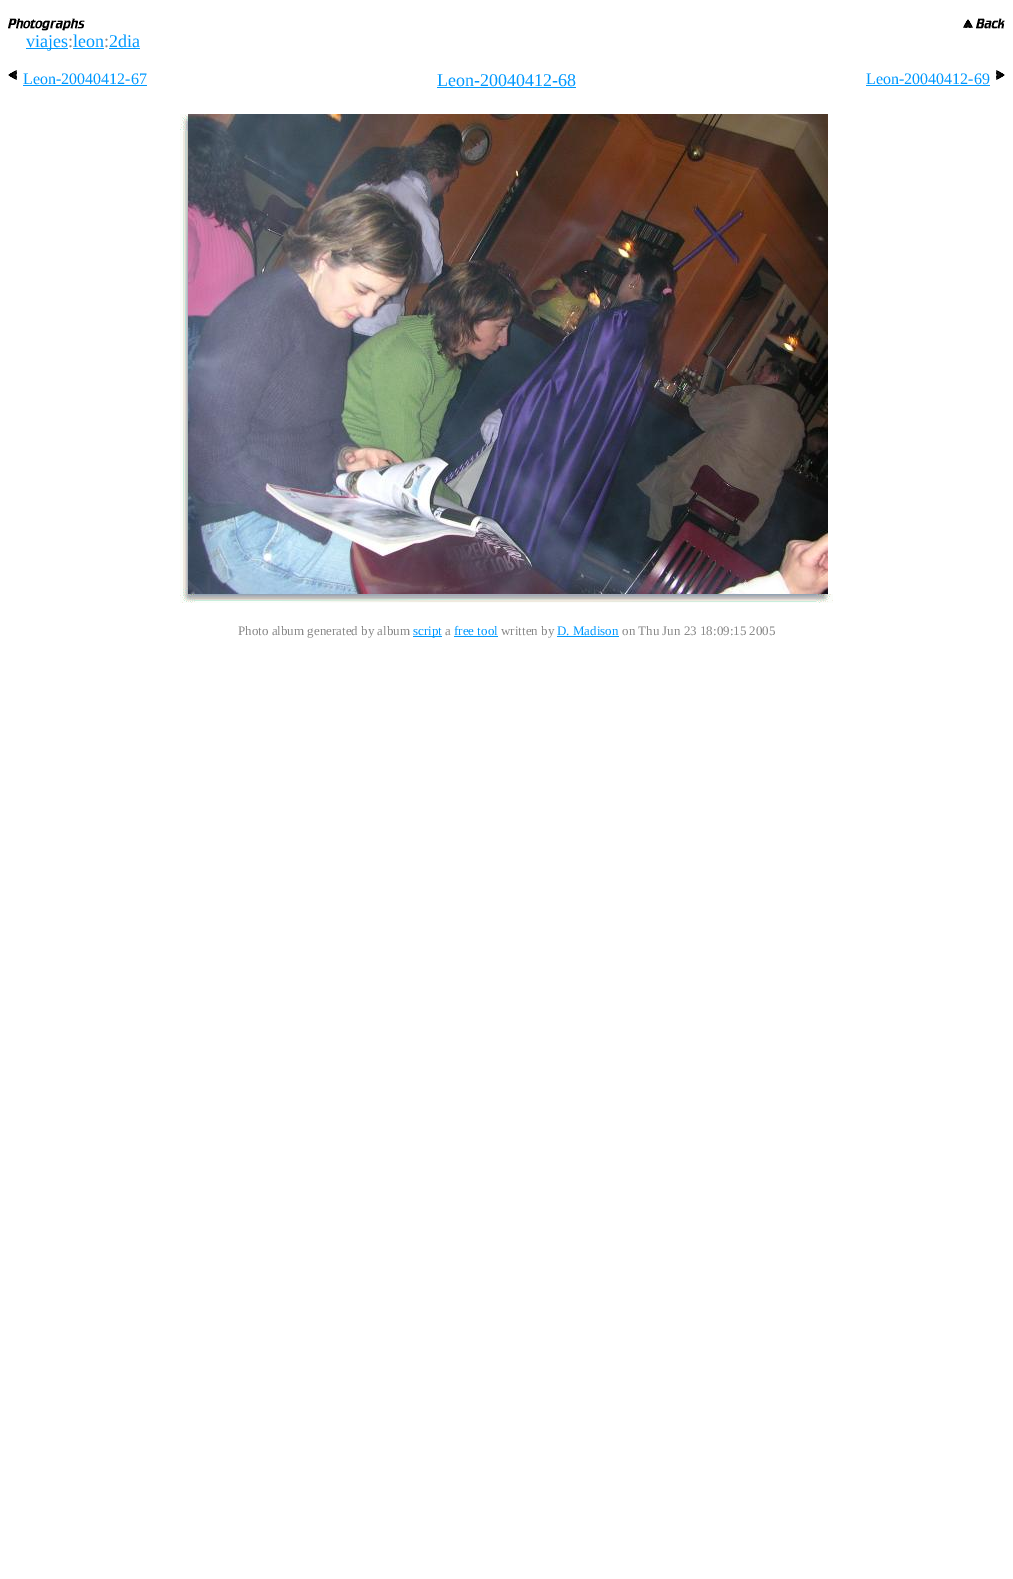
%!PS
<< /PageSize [1013 1579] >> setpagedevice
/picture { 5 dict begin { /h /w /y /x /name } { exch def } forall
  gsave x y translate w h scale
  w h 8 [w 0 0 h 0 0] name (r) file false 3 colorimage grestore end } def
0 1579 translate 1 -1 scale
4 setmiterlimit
1 setgray
0 0 1013 1579 rectfill
(img1.rgb) 963 18 42 11 picture
(img2.rgb) 8 18 77 13 picture
0 0.6 1 setrgbcolor
26 48 42 1 rectfill
/LiberationSerif-Regular [18 0 0 -18 0 0] selectfont
26 47 moveto (viajes) show
0.533 setgray
68 47 moveto (:) show
0 0.6 1 setrgbcolor
73 48 31 1 rectfill
73 47 moveto (leon) show
0.533 setgray
104 47 moveto (:) show
0 0.6 1 setrgbcolor
109 48 31 1 rectfill
109 47 moveto (2dia) show
(img3.rgb) 8 70 9 10 picture
/LiberationSerif-Regular [16 0 0 -16 0 0] selectfont
23 84 moveto (Leon-20040412-67) show
23 85 124 1 rectfill
/LiberationSerif-Regular [18 0 0 -18 0 0] selectfont
437 86 moveto (Leon-20040412-68) show
437 87 139 1 rectfill
/LiberationSerif-Regular [16 0 0 -16 0 0] selectfont
866 84 moveto (Leon-20040412-69) show
866 85 124 1 rectfill
(img4.rgb) 996 70 9 10 picture
(img5.rgb) 180 114 8 17 picture
(img6.rgb) 188 114 640 480 picture
(img7.rgb) 180 131 8 457 picture
(img8.rgb) 180 588 8 6 picture
(img9.rgb) 180 594 15 9 picture
(img10.rgb) 195 594 621 9 picture
(img11.rgb) 816 594 17 9 picture
/LiberationSerif-Regular [13 0 0 -13 0 0] selectfont
0.533 setgray
238 635 moveto (Photo album generated by album) show
0 0.6 1 setrgbcolor
413 636 29 1 rectfill
413 635 moveto (script) show
0.533 setgray
445 635 moveto (a) show
0 0.6 1 setrgbcolor
454 635 moveto (free tool) show
0.533 setgray
501 635 moveto (written by) show
0 0.6 1 setrgbcolor
454 636 44 1 rectfill
557 635 moveto (D. Madison) show
557 636 62 1 rectfill
0.533 setgray
622 635 moveto (on Thu Jun 23 18:09:15 2005) show
showpage
